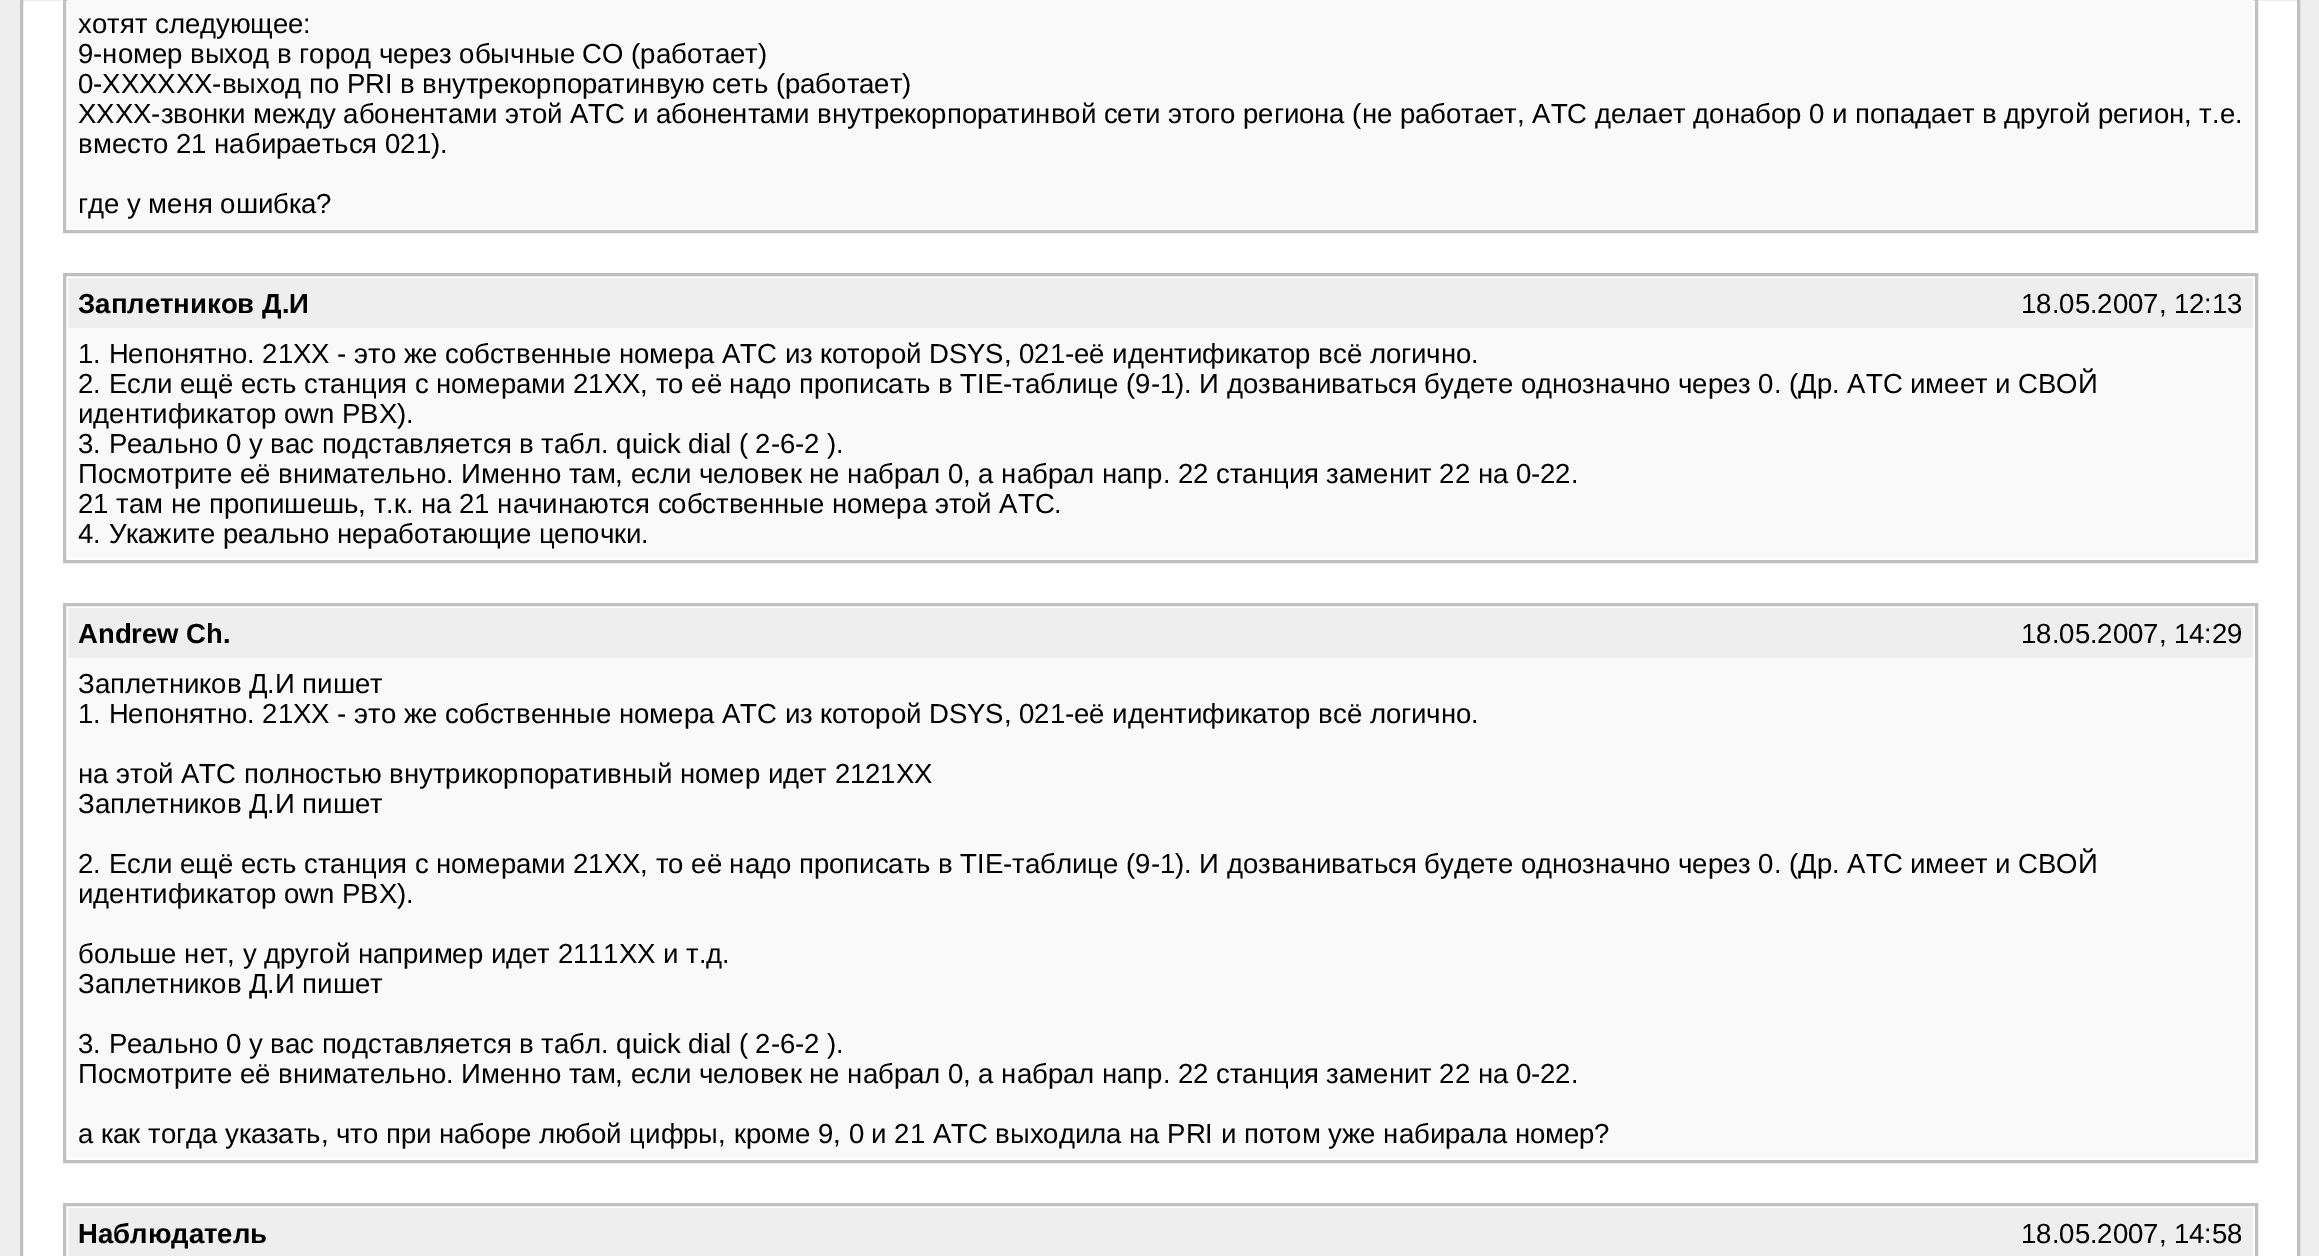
%!PS
<< /PageSize [2319 1256] >> setpagedevice
0 1256 translate 1 -1 scale
4 setmiterlimit
0.933 setgray
0 0 2319 1256 rectfill
1 setgray
newpath 21.5 -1.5 moveto 2298.5 -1.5 lineto 2298.5 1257.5 lineto 21.5 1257.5 lineto closepath gsave fill grestore
0.753 setgray
3 setlinewidth
stroke
64.5 -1.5 2192 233 rectstroke
0.976 setgray
68 0 2185 228 rectfill
/LiberationSans-Regular [27.5 0 0 -27.5 0 0] selectfont
0 setgray
78 33 moveto (хотят следующее:) show
78 63 moveto (9-номер выход в город через обычные СО \(работает\)) show
78 93 moveto (0-ХХХХХХ-выход по PRI в внутрекорпоратинвую сеть \(работает\)) show
78 123 moveto (ХХХХ-звонки между абонентами этой АТС и абонентами внутрекорпоратинвой сети этого региона \(не работает, АТС делает донабор 0 и попадает в другой регион, т.е.) show
78 153 moveto (вместо 21 набираеться 021\).) show
78 213 moveto (где у меня ошибка?) show
0.753 setgray
64.5 274.5 2192 287 rectstroke
0.933 setgray
68 278 2185 50 rectfill
/LiberationSans-Bold [27.5 0 0 -27.5 0 0] selectfont
0 setgray
78 313 moveto (Заплетников Д.И) show
/LiberationSans-Regular [27.5 0 0 -27.5 0 0] selectfont
2021 313 moveto (18.05.2007, 12:13) show
0.976 setgray
68 328 2185 230 rectfill
0 setgray
78 363 moveto (1. Непонятно. 21ХХ - это же собственные номера АТС из которой DSYS, 021-её идентификатор всё логично.) show
78 393 moveto (2. Если ещё есть станция с номерами 21ХХ, то её надо прописать в TIE-таблице \(9-1\). И дозваниваться будете однозначно через 0. \(Др. АТС имеет и СВОЙ) show
78 423 moveto (идентификатор own PBX\).) show
78 453 moveto (3. Реально 0 у вас подставляется в табл. quick dial \( 2-6-2 \).) show
78 483 moveto (Посмотрите её внимательно. Именно там, если человек не набрал 0, а набрал напр. 22 станция заменит 22 на 0-22.) show
78 513 moveto (21 там не пропишешь, т.к. на 21 начинаются собственные номера этой АТС.) show
78 543 moveto (4. Укажите реально неработающие цепочки.) show
0.753 setgray
64.5 604.5 2192 557 rectstroke
0.933 setgray
68 608 2185 50 rectfill
/LiberationSans-Bold [27.5 0 0 -27.5 0 0] selectfont
0 setgray
78 643 moveto (Andrew Ch.) show
/LiberationSans-Regular [27.5 0 0 -27.5 0 0] selectfont
2021 643 moveto (18.05.2007, 14:29) show
0.976 setgray
68 658 2185 500 rectfill
0 setgray
78 693 moveto (Заплетников Д.И пишет) show
78 723 moveto (1. Непонятно. 21ХХ - это же собственные номера АТС из которой DSYS, 021-её идентификатор всё логично.) show
78 783 moveto (на этой АТС полностью внутрикорпоративный номер идет 2121ХХ) show
78 813 moveto (Заплетников Д.И пишет) show
78 873 moveto (2. Если ещё есть станция с номерами 21ХХ, то её надо прописать в TIE-таблице \(9-1\). И дозваниваться будете однозначно через 0. \(Др. АТС имеет и СВОЙ) show
78 903 moveto (идентификатор own PBX\).) show
78 963 moveto (больше нет, у другой например идет 2111ХХ и т.д.) show
78 993 moveto (Заплетников Д.И пишет) show
78 1053 moveto (3. Реально 0 у вас подставляется в табл. quick dial \( 2-6-2 \).) show
78 1083 moveto (Посмотрите её внимательно. Именно там, если человек не набрал 0, а набрал напр. 22 станция заменит 22 на 0-22.) show
78 1143 moveto (а как тогда указать, что при наборе любой цифры, кроме 9, 0 и 21 АТС выходила на PRI и потом уже набирала номер?) show
0.753 setgray
64.5 1204.5 2192 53 rectstroke
0.933 setgray
68 1208 2185 48 rectfill
/LiberationSans-Bold [27.5 0 0 -27.5 0 0] selectfont
0 setgray
78 1243 moveto (Наблюдатель) show
/LiberationSans-Regular [27.5 0 0 -27.5 0 0] selectfont
2021 1243 moveto (18.05.2007, 14:58) show
showpage
